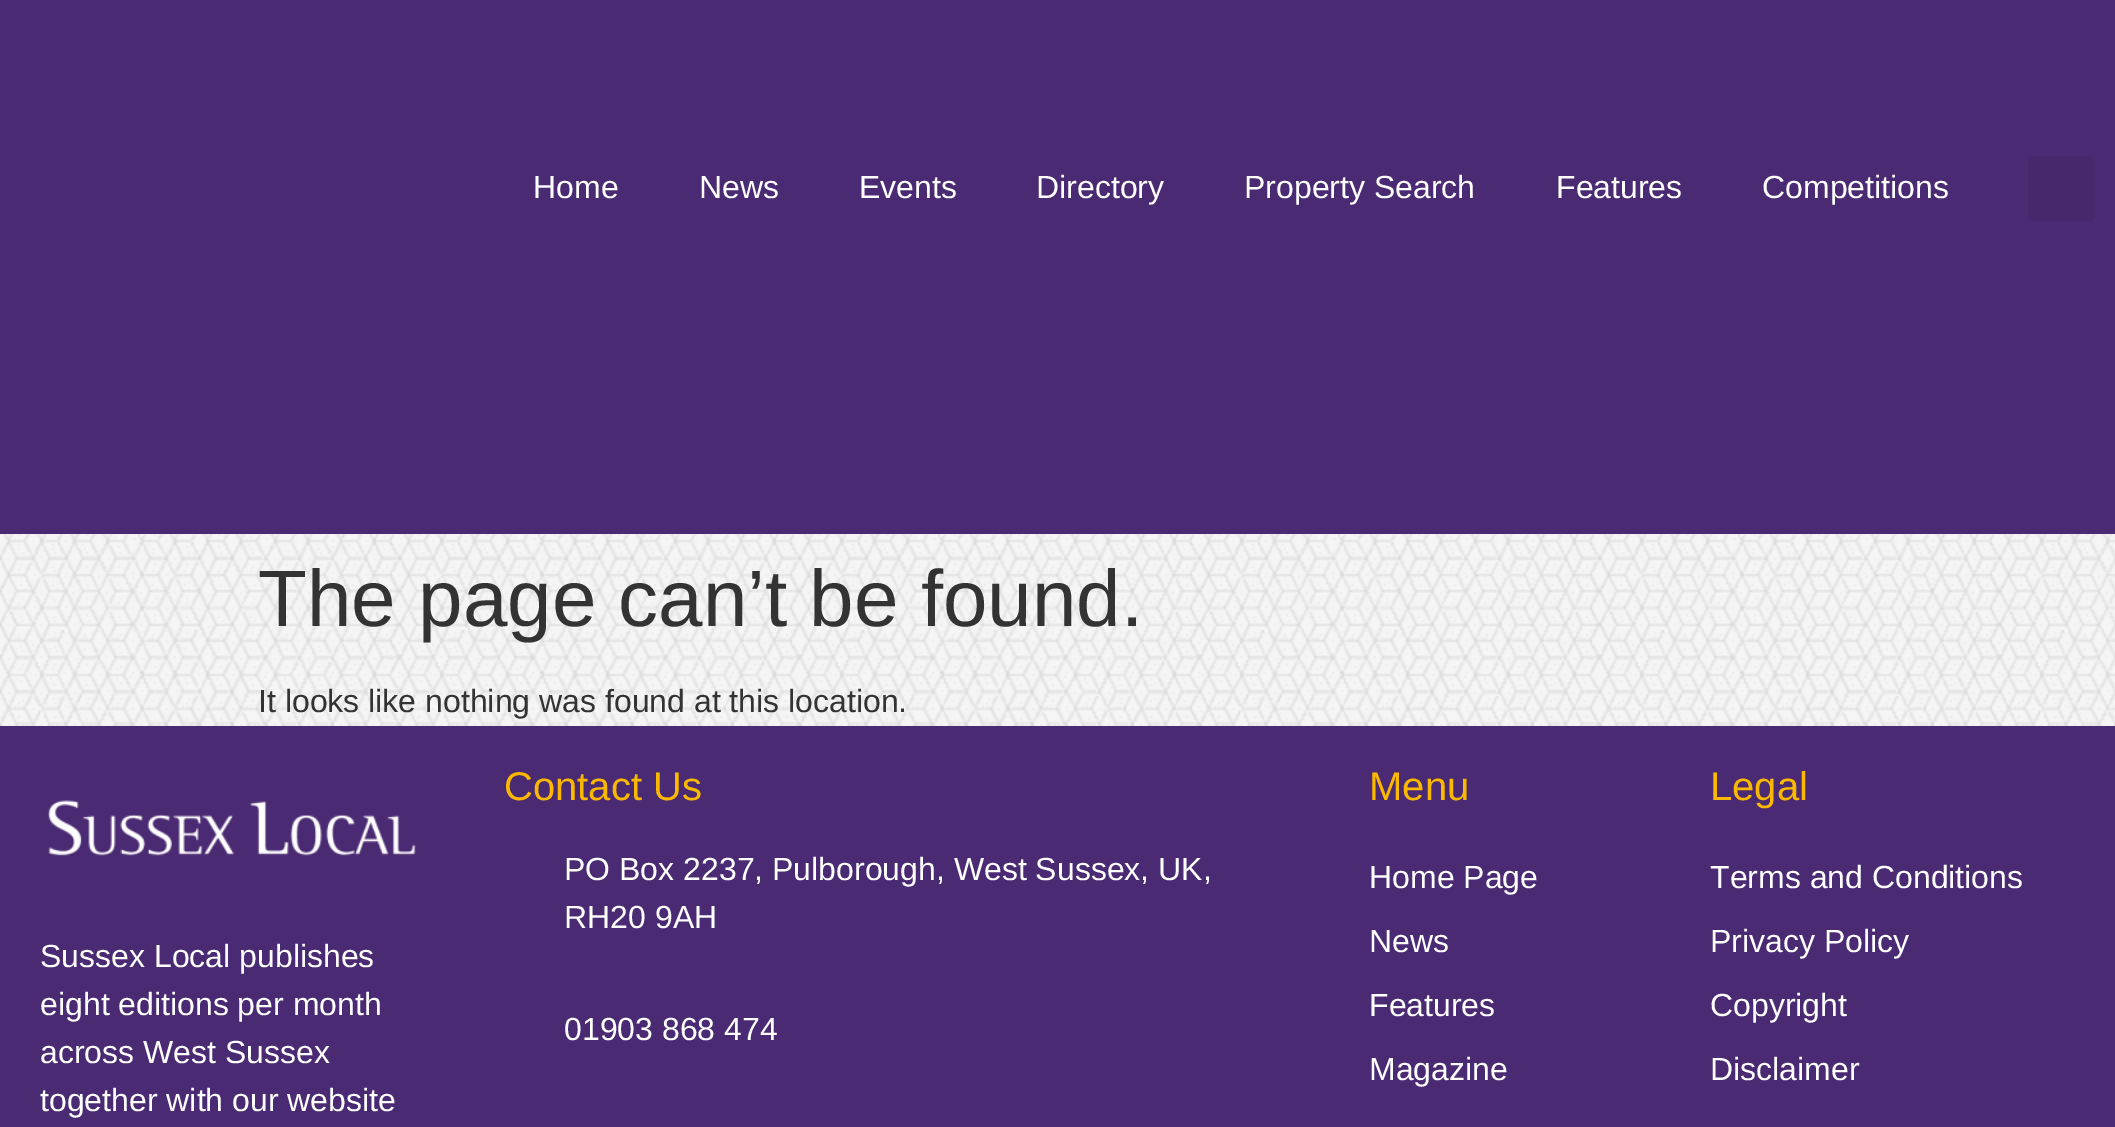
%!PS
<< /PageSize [2115 1127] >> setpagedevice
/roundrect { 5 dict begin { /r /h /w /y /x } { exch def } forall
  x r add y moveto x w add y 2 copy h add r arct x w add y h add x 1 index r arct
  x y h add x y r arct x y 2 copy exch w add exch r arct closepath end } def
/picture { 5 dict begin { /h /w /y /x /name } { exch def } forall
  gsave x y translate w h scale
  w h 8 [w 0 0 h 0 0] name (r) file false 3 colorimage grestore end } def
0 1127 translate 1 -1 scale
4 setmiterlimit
1 setgray
0 0 2115 1127 rectfill
(img1.rgb) 0 534 2115 192 picture
0.29 0.165 0.447 setrgbcolor
0 0 2115 534 rectfill
/LiberationSans-Regular [32 0 0 -32 0 0] selectfont
1 setgray
533 198 moveto (Home) show
699 198 moveto (News) show
859 198 moveto (Events) show
1036 198 moveto (Directory) show
1244 198 moveto (Property Search) show
1556 198 moveto (Features) show
1762 198 moveto (Competitions) show
0.275 0.157 0.424 setrgbcolor
2028 156 66 66 6 roundrect fill
/LiberationSans-Regular [80 0 0 -80 0 0] selectfont
0.2 setgray
258 626 moveto (The page can’t be found.) show
/LiberationSans-Regular [32 0 0 -32 0 0] selectfont
258 712 moveto (It looks like nothing was found at this location.) show
0.29 0.165 0.447 setrgbcolor
0 726 2115 401 rectfill
(img2.rgb) 47 800 369 56 picture
1 setgray
40 967 moveto (Sussex Local publishes) show
40 1015 moveto (eight editions per month) show
40 1063 moveto (across West Sussex) show
40 1111 moveto (together with our website) show
/LiberationSans-Regular [40 0 0 -40 0 0] selectfont
0.98 0.725 0 setrgbcolor
504 800 moveto (Contact Us) show
/LiberationSans-Regular [32 0 0 -32 0 0] selectfont
1 setgray
564 880 moveto (PO Box 2237, Pulborough, West Sussex, UK,) show
564 928 moveto (RH20 9AH) show
564 1040 moveto (01903 868 474) show
/LiberationSans-Regular [40 0 0 -40 0 0] selectfont
0.98 0.725 0 setrgbcolor
1369 800 moveto (Menu) show
/LiberationSans-Regular [32 0 0 -32 0 0] selectfont
1 setgray
1369 888 moveto (Home Page) show
1369 952 moveto (News) show
1369 1016 moveto (Features) show
1369 1080 moveto (Magazine) show
/LiberationSans-Regular [40 0 0 -40 0 0] selectfont
0.98 0.725 0 setrgbcolor
1710 800 moveto (Legal) show
/LiberationSans-Regular [32 0 0 -32 0 0] selectfont
1 setgray
1710 888 moveto (Terms and Conditions) show
1710 952 moveto (Privacy Policy) show
1710 1016 moveto (Copyright) show
1710 1080 moveto (Disclaimer) show
showpage
